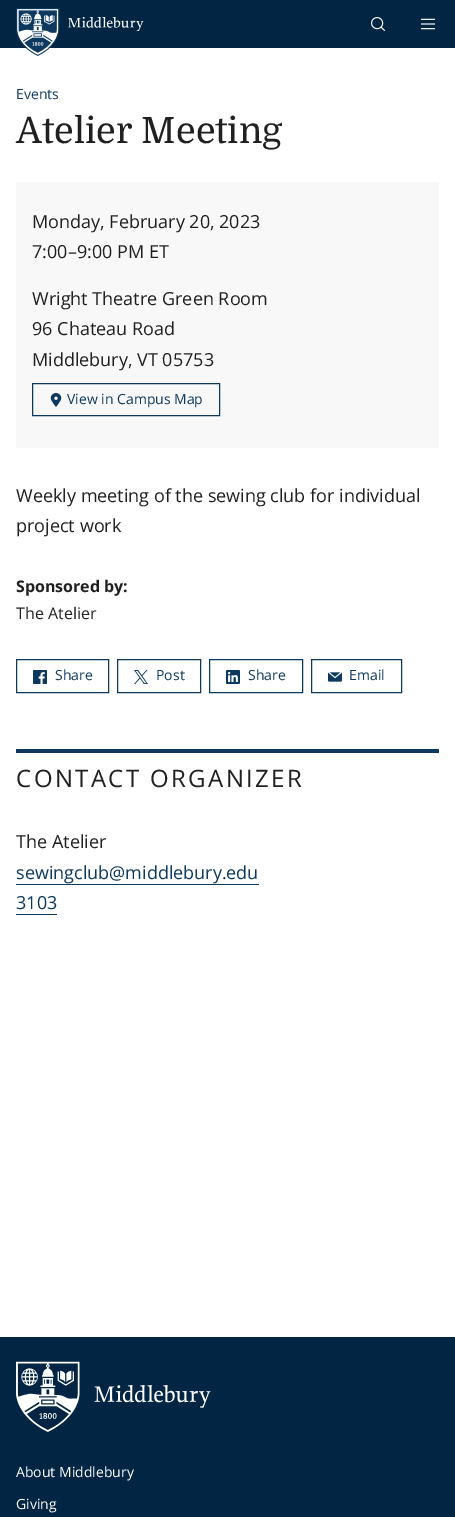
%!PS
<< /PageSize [455 1517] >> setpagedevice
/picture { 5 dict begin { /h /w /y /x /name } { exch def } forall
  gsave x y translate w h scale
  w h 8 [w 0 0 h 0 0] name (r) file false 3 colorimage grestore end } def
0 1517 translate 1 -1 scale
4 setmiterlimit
1 setgray
0 0 455 1517 rectfill
0.008 0.145 0.263 setrgbcolor
0 0 455 48 rectfill
(img1.rgb) 16 8 44 48 picture
(img2.rgb) 68 17 76 14 picture
(img3.rgb) 371 17 14 14 picture
(img4.rgb) 421 18 14 12 picture
/OpenSans-Regular [14 0 0 -14 0 0] selectfont
0.051 0.224 0.373 setrgbcolor
16 99 moveto (Events) show
/Domine-Regular [36 0 0 -36 0 0] selectfont
0.125 setgray
16 143 moveto (Atelier Meeting) show
0.973 setgray
16 182 423 266 rectfill
/OpenSans-Regular [18 0 0 -18 0 0] selectfont
0.125 setgray
32 228 moveto (Monday, February 20, 2023) show
32 258 moveto (7:00–9:00 PM ET) show
32 305 moveto (Wright Theatre Green Room) show
32 335 moveto (96 Chateau Road) show
32 366 moveto (Middlebury, VT 05753) show
0.051 0.224 0.373 setrgbcolor
32.5 383.5 187 32 rectstroke
(img5.rgb) 50 393 12 14 picture
/OpenSans-Regular [14 0 0 -14 0 0] selectfont
67 404 moveto (View in Campus Map) show
/OpenSans-Regular [18 0 0 -18 0 0] selectfont
0.125 setgray
16 502 moveto (Weekly meeting of the sewing club for individual) show
16 532 moveto (project work) show
/OpenSans-Bold [16 0 0 -16 0 0] selectfont
16 592 moveto (Sponsored by:) show
/OpenSans-Regular [16 0 0 -16 0 0] selectfont
16 619 moveto (The Atelier) show
0.051 0.224 0.373 setrgbcolor
16.5 659.5 92 33 rectstroke
(img6.rgb) 33 670 14 14 picture
/OpenSans-Regular [14 0 0 -14 0 0] selectfont
55 680 moveto (Share) show
117.5 659.5 83 33 rectstroke
(img7.rgb) 134 670 14 14 picture
156 680 moveto (Post) show
209.5 659.5 93 33 rectstroke
(img8.rgb) 226 670 14 14 picture
248 680 moveto (Share) show
311.5 659.5 90 33 rectstroke
(img9.rgb) 328 672 14 10 picture
349 680 moveto (Email) show
16 749 423 4 rectfill
/OpenSans-Regular [24 0 0 -24 0 0] selectfont
0.125 setgray
16 787 moveto 2.4 0 (CONTACT ORGANIZER) ashow
/OpenSans-Regular [18 0 0 -18 0 0] selectfont
16 848 moveto (The Atelier) show
0.051 0.224 0.373 setrgbcolor
16 879 moveto (sewingclub@middlebury.edu) show
16 884 243 1 rectfill
16 909 moveto (3103) show
16 914 41 1 rectfill
0.008 0.145 0.263 setrgbcolor
0 1337 455 180 rectfill
(img10.rgb) 16 1361 195 71 picture
/OpenSans-Regular [14 0 0 -14 0 0] selectfont
1 setgray
16 1477 moveto (About Middlebury) show
16 1509 moveto (Giving) show
showpage
